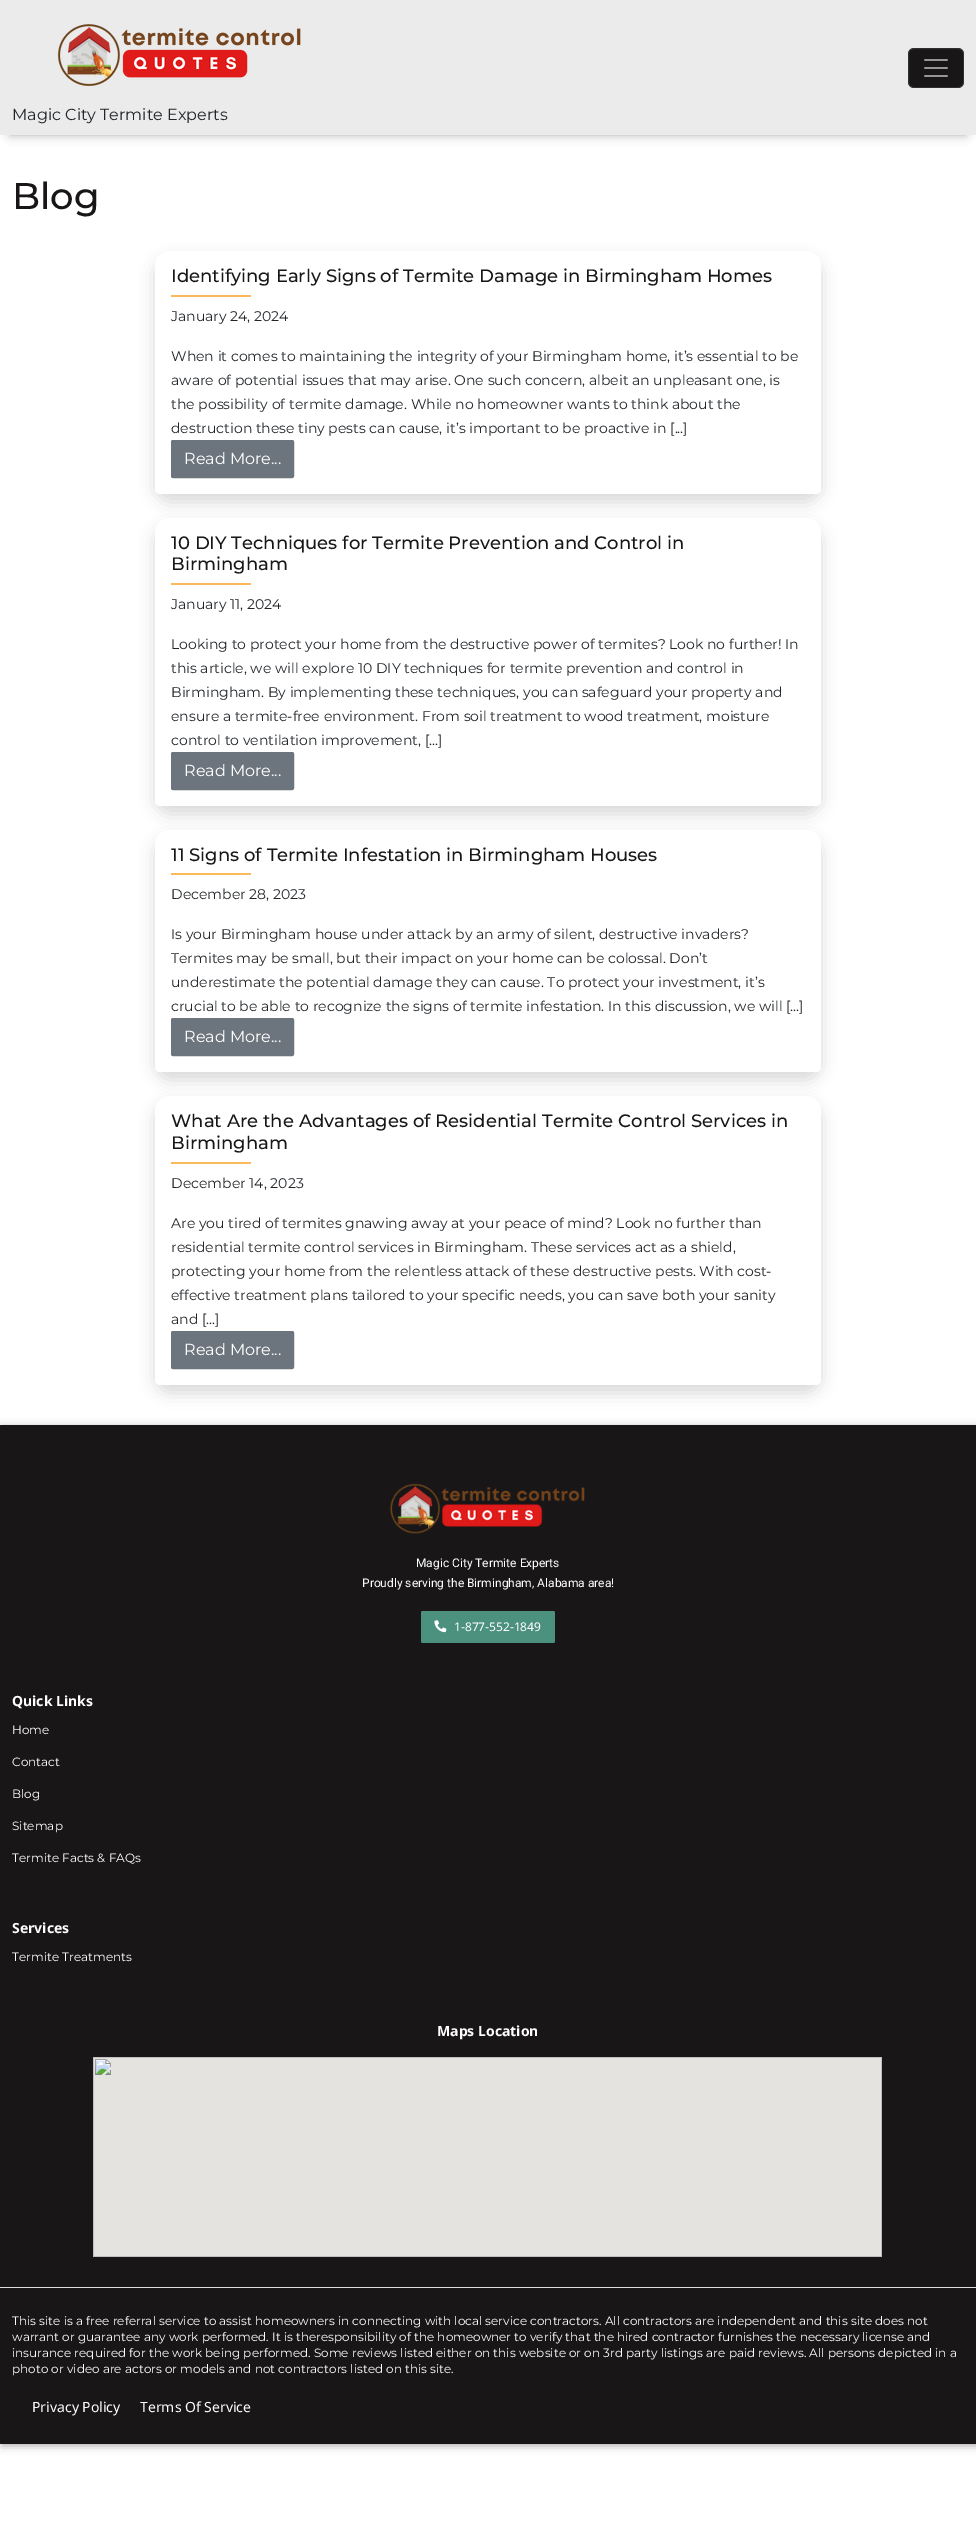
%!PS
<< /PageSize [976 2544] /PageUsesTransparency true >> setpagedevice
/alpha { dup .setfillconstantalpha .setstrokeconstantalpha } def
/roundrect { 5 dict begin { /r /h /w /y /x } { exch def } forall
  x r add y moveto x w add y 2 copy h add r arct x w add y h add x 1 index r arct
  x y h add x y r arct x y 2 copy exch w add exch r arct closepath end } def
/shadow { 12 dict begin { /a /b /q /h /w /y /x } { exch def } forall gsave /was 0 def
  9 -2 -9 { dup b mul 4 div /e exch def 1 sub .425 mul 2.718 exch exp 1 add a .99 .min exch div /now exch def
    1 1 now sub 1 was sub div sub alpha /was now def
    w h .min e 2 mul add 0 gt { x e sub y e sub w e 2 mul add h e 2 mul add
      q e add b .6 mul add w h .min 2 div e add .min 0 .max roundrect fill } if } for grestore end } def
/picture { 5 dict begin { /h /w /y /x /name } { exch def } forall
  gsave x y translate w h scale
  w h 8 [w 0 0 h 0 0] name (r) file false 3 colorimage grestore end } def
0 .pushpdf14devicefilter
0 2544 translate 1 -1 scale
4 setmiterlimit
1 setgray
0 0 976 2544 rectfill
0.067 setgray
10 20 956 115 0 5 0.33 shadow
0.922 setgray
0 0 976 135 rectfill
0.094 0.086 0.09 setrgbcolor
908 48 56 40 6 roundrect fill
0.1 alpha
1 setgray
908.5 48.5 55 39 5.5 roundrect stroke
1 alpha
(img1.rgb) 924 59 24 18 picture
(img2.rgb) 57 24 244 62 picture
/Montserrat-Regular [16 0 0 -16 0 0] selectfont
0.129 0.145 0.161 setrgbcolor
12 120 moveto (Magic City Termite Experts) show
/Montserrat-Medium [37 0 0 -37 0 0] selectfont
0.094 0.086 0.09 setrgbcolor
12 209 moveto (Blog) show
0 setgray
155 259 666 243 15 8 0.15 shadow
1 setgray
newpath 170 251 moveto 806 251 lineto 814.5 251 821 257.5 821 266 curveto 821 489 lineto 821 492 819 494 816 494 curveto 160 494 lineto 157 494 155 492 155 489 curveto 155 266 lineto 155 257.5 161.5 251 170 251 curveto closepath fill
/Montserrat-Medium [18 0 0 -18 0 0] selectfont
0.094 0.086 0.09 setrgbcolor
171 282 moveto (Identifying Early Signs of Termite Damage in Birmingham Homes) show
0.98 0.729 0.349 setrgbcolor
171 295 80 2 rectfill
/Montserrat-Regular [14 0 0 -14 0 0] selectfont
0.129 0.145 0.161 setrgbcolor
171 321 moveto (January 24, 2024) show
171 361 moveto (When it comes to maintaining the integrity of your Birmingham home, it’s essential to be) show
171 385 moveto (aware of potential issues that may arise. One such concern, albeit an unpleasant one, is) show
171 409 moveto (the possibility of termite damage. While no homeowner wants to think about the) show
171 433 moveto (destruction these tiny pests can cause, it’s important to be proactive in [...]) show
0.424 0.459 0.49 setrgbcolor
171.5 440.5 122 37 1.5 roundrect gsave fill grestore
stroke
/Montserrat-Regular [16 0 0 -16 0 0] selectfont
1 setgray
184 464 moveto (Read More...) show
0 setgray
155 526 666 288 15 8 0.15 shadow
1 setgray
newpath 170 518 moveto 806 518 lineto 814.5 518 821 524.5 821 533 curveto 821 801 lineto 821 804 819 806 816 806 curveto 160 806 lineto 157 806 155 804 155 801 curveto 155 533 lineto 155 524.5 161.5 518 170 518 curveto closepath fill
/Montserrat-Medium [18 0 0 -18 0 0] selectfont
0.094 0.086 0.09 setrgbcolor
171 549 moveto (10 DIY Techniques for Termite Prevention and Control in) show
171 570 moveto (Birmingham) show
0.98 0.729 0.349 setrgbcolor
171 583 80 2 rectfill
/Montserrat-Regular [14 0 0 -14 0 0] selectfont
0.129 0.145 0.161 setrgbcolor
171 609 moveto (January 11, 2024) show
171 649 moveto (Looking to protect your home from the destructive power of termites? Look no further! In) show
171 673 moveto (this article, we will explore 10 DIY techniques for termite prevention and control in) show
171 697 moveto (Birmingham. By implementing these techniques, you can safeguard your property and) show
171 721 moveto (ensure a termite-free environment. From soil treatment to wood treatment, moisture) show
171 745 moveto (control to ventilation improvement, [...]) show
0.424 0.459 0.49 setrgbcolor
171.5 752.5 122 37 1.5 roundrect gsave fill grestore
stroke
/Montserrat-Regular [16 0 0 -16 0 0] selectfont
1 setgray
184 776 moveto (Read More...) show
0 setgray
155 838 666 242 15 8 0.15 shadow
1 setgray
newpath 170 830 moveto 806 830 lineto 814.5 830 821 836.5 821 845 curveto 821 1067 lineto 821 1070 819 1072 816 1072 curveto 160 1072 lineto 157 1072 155 1070 155 1067 curveto 155 845 lineto 155 836.5 161.5 830 170 830 curveto closepath fill
/Montserrat-Medium [18 0 0 -18 0 0] selectfont
0.094 0.086 0.09 setrgbcolor
171 861 moveto (11 Signs of Termite Infestation in Birmingham Houses) show
0.98 0.729 0.349 setrgbcolor
171 873 80 2 rectfill
/Montserrat-Regular [14 0 0 -14 0 0] selectfont
0.129 0.145 0.161 setrgbcolor
171 899 moveto (December 28, 2023) show
171 939 moveto (Is your Birmingham house under attack by an army of silent, destructive invaders?) show
171 963 moveto (Termites may be small, but their impact on your home can be colossal. Don’t) show
171 987 moveto (underestimate the potential damage they can cause. To protect your investment, it’s) show
171 1011 moveto (crucial to be able to recognize the signs of termite infestation. In this discussion, we will [...]) show
0.424 0.459 0.49 setrgbcolor
171.5 1018.5 122 37 1.5 roundrect gsave fill grestore
stroke
/Montserrat-Regular [16 0 0 -16 0 0] selectfont
1 setgray
184 1042 moveto (Read More...) show
0 setgray
155 1104 666 289 15 8 0.15 shadow
1 setgray
newpath 170 1096 moveto 806 1096 lineto 814.5 1096 821 1102.5 821 1111 curveto 821 1380 lineto 821 1383 819 1385 816 1385 curveto 160 1385 lineto 157 1385 155 1383 155 1380 curveto 155 1111 lineto 155 1102.5 161.5 1096 170 1096 curveto closepath fill
/Montserrat-Medium [18 0 0 -18 0 0] selectfont
0.094 0.086 0.09 setrgbcolor
171 1127 moveto (What Are the Advantages of Residential Termite Control Services in) show
171 1149 moveto (Birmingham) show
0.98 0.729 0.349 setrgbcolor
171 1162 80 2 rectfill
/Montserrat-Regular [14 0 0 -14 0 0] selectfont
0.129 0.145 0.161 setrgbcolor
171 1188 moveto (December 14, 2023) show
171 1228 moveto (Are you tired of termites gnawing away at your peace of mind? Look no further than) show
171 1252 moveto (residential termite control services in Birmingham. These services act as a shield,) show
171 1276 moveto (protecting your home from the relentless attack of these destructive pests. With cost-) show
171 1300 moveto (effective treatment plans tailored to your specific needs, you can save both your sanity) show
171 1324 moveto (and [...]) show
0.424 0.459 0.49 setrgbcolor
171.5 1331.5 122 37 1.5 roundrect gsave fill grestore
stroke
/Montserrat-Regular [16 0 0 -16 0 0] selectfont
1 setgray
184 1355 moveto (Read More...) show
0.067 setgray
2 1427 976 1019 0 4 0.33 shadow
0.094 0.086 0.09 setrgbcolor
0 1425 976 1019 rectfill
(img3.rgb) 390 1483 195 51 picture
/Roboto-Regular [12 0 0 -12 0 0] selectfont
1 setgray
416 1567 moveto (Magic City Termite Experts) show
362 1587 moveto (Proudly serving the Birmingham, Alabama area!) show
0.294 0.569 0.49 setrgbcolor
421 1611 134 32 2 roundrect fill
(img4.rgb) 434 1620 13 13 picture
/NotoSans-Regular [12 0 0 -12 0 0] selectfont
1 setgray
454 1631 moveto (1-877-552-1849) show
/NotoSans-Bold [14 0 0 -14 0 0] selectfont
12 1706 moveto (Quick Links) show
/Montserrat-Regular [12 0 0 -12 0 0] selectfont
12 1734 moveto (Home) show
12 1766 moveto (Contact) show
12 1798 moveto (Blog) show
12 1830 moveto (Sitemap) show
12 1862 moveto (Termite Facts & FAQs) show
/NotoSans-Bold [14 0 0 -14 0 0] selectfont
12 1933 moveto (Services) show
/Montserrat-Regular [12 0 0 -12 0 0] selectfont
12 1961 moveto (Termite Treatments) show
/NotoSans-Bold [14 0 0 -14 0 0] selectfont
437 2036 moveto (Maps Location) show
(img5.rgb) 93 2057 789 200 picture
0.867 setgray
0 2287 976 1 rectfill
/Montserrat-Regular [12 0 0 -12 0 0] selectfont
1 setgray
12 2325 moveto (This site is a free referral service to assist homeowners in connecting with local service contractors. All contractors are independent and this site does not) show
12 2341 moveto (warrant or guarantee any work performed. It is theresponsibility of the homeowner to verify that the hired contractor furnishes the necessary license and) show
12 2357 moveto (insurance required for the work being performed. Some reviews listed either on this website or on 3rd party listings are paid reviews. All persons depicted in a) show
12 2373 moveto (photo or video are actors or models and not contractors listed on this site.) show
/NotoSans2-Regular [14 0 0 -14 0 0] selectfont
32 2412 moveto (Privacy Policy) show
140 2412 moveto (Terms Of Service) show
.poppdf14devicefilter showpage
